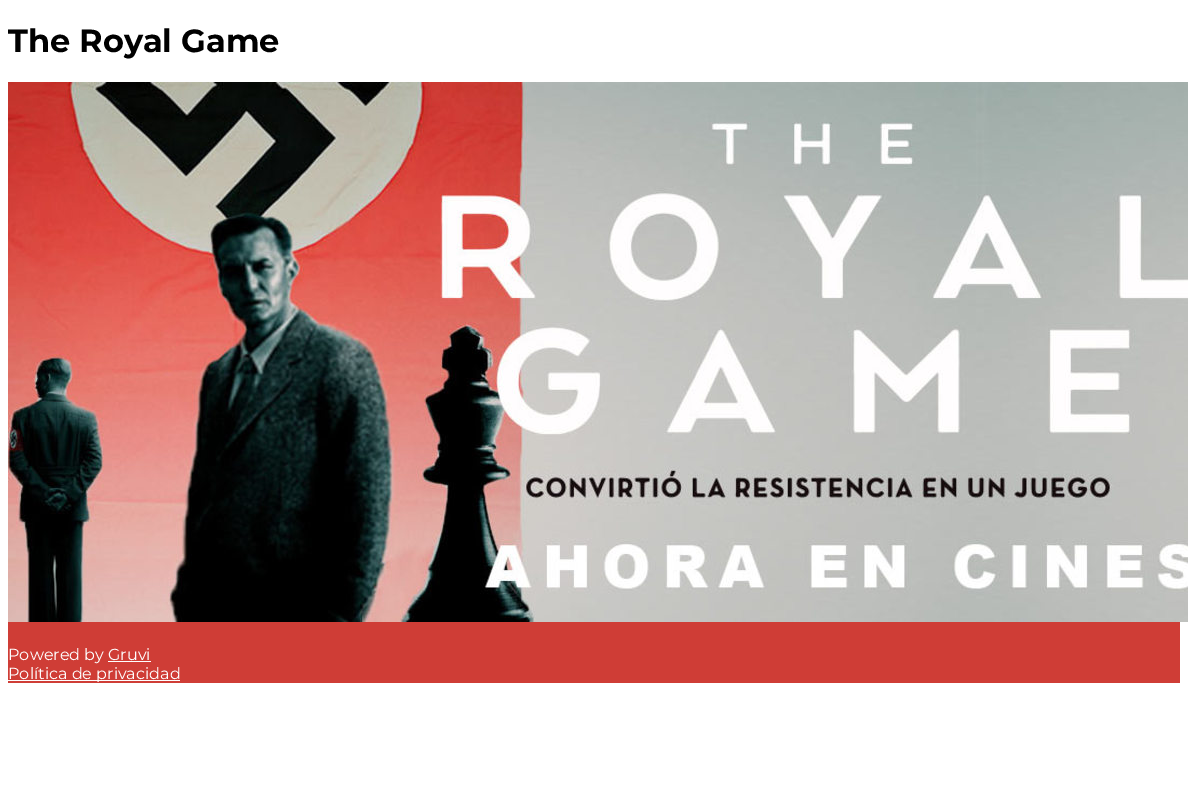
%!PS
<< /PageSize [1188 798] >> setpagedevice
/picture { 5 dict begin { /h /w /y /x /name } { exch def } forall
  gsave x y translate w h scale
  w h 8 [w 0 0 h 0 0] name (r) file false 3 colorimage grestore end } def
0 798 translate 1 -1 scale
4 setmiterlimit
1 setgray
0 0 1188 798 rectfill
/Montserrat-Bold [32 0 0 -32 0 0] selectfont
0 setgray
8 52 moveto (The Royal Game) show
0.812 0.239 0.212 setrgbcolor
8 622 1172 61 rectfill
(img1.rgb) 8 82 1180 540 picture
/Montserrat-Regular [16 0 0 -16 0 0] selectfont
1 setgray
8 660 moveto (Powered by Gruvi) show
108 661 43 1 rectfill
8 680 172 1 rectfill
8 679 moveto (Política de privacidad) show
showpage
